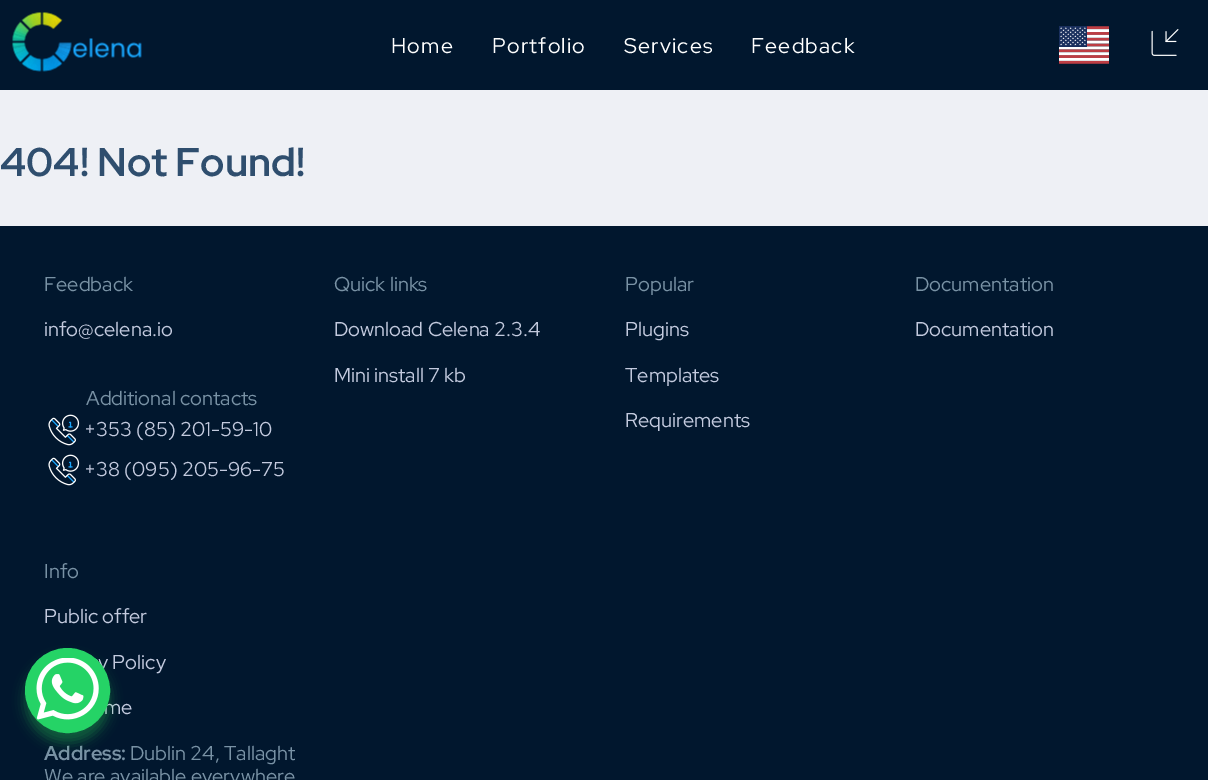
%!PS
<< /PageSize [1208 780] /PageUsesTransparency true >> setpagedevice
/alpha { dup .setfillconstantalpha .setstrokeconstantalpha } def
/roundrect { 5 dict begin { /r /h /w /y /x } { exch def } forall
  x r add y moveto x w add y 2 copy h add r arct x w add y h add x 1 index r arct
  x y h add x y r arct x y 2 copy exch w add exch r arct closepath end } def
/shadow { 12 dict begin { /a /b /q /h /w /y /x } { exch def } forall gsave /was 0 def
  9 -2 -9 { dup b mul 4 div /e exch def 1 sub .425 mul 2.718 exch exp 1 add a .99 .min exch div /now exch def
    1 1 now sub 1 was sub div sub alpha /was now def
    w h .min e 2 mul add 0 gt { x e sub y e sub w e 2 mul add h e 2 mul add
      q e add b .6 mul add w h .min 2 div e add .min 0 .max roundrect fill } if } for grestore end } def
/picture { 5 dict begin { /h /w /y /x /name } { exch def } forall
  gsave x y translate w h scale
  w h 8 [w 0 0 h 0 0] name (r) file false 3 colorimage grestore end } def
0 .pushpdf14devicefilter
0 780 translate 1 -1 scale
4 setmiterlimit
0.933 0.941 0.961 setrgbcolor
0 0 1208 780 rectfill
0.004 0.09 0.18 setrgbcolor
0 0 1208 90 rectfill
(img1.rgb) 12 12 130 60 picture
/RedHatDisplay-Regular [21.25 0 0 -21.25 0 0] selectfont
1 setgray
391 53 moveto 1.25 0 (Home) ashow
492 53 moveto 1.25 0 (Portfolio) ashow
624 53 moveto 1.25 0 (Services) ashow
751 53 moveto 1.25 0 (Feedback) ashow
(img2.rgb) 1059 26 50 38 picture
(img3.rgb) 1151 29 28 27 picture
/RedHatDisplay-Bold [40 0 0 -40 0 0] selectfont
0.184 0.306 0.431 setrgbcolor
0 176 moveto (404! Not Found!) show
0.004 0.09 0.18 setrgbcolor
0 226 1208 554 rectfill
/RedHatDisplay-Regular [20 0 0 -20 0 0] selectfont
0.475 0.573 0.647 setrgbcolor
44 291 moveto (Feedback) show
0.765 0.792 0.871 setrgbcolor
44 336 moveto (info@celena.io) show
0.475 0.573 0.647 setrgbcolor
86 405 moveto (Additional contacts) show
(img4.rgb) 48 414 32 32 picture
0.765 0.792 0.871 setrgbcolor
84 436 moveto (+353 \(85\) 201-59-10) show
(img4.rgb) 48 454 32 32 picture
84 476 moveto (+38 \(095\) 205-96-75) show
0.475 0.573 0.647 setrgbcolor
334 291 moveto (Quick links) show
0.765 0.792 0.871 setrgbcolor
334 336 moveto (Download Celena 2.3.4) show
334 382 moveto (Mini install 7 kb) show
0.475 0.573 0.647 setrgbcolor
625 291 moveto (Popular) show
0.765 0.792 0.871 setrgbcolor
625 336 moveto (Plugins) show
625 382 moveto (Templates) show
625 427 moveto (Requirements) show
0.475 0.573 0.647 setrgbcolor
915 291 moveto (Documentation) show
0.765 0.792 0.871 setrgbcolor
915 336 moveto (Documentation) show
0.475 0.573 0.647 setrgbcolor
44 578 moveto (Info) show
0.765 0.792 0.871 setrgbcolor
44 623 moveto (Public offer) show
98 669 moveto (y Policy) show
104 714 moveto (me) show
/RedHatDisplay-Bold [20 0 0 -20 0 0] selectfont
0.475 0.573 0.647 setrgbcolor
44 760 moveto (Address:) show
/RedHatDisplay-Regular [20 0 0 -20 0 0] selectfont
130 760 moveto (Dublin 24, Tallaght) show
44 783 moveto (We are available everywhere) show
0.22 0.992 0.373 setrgbcolor
25 658 85 85 42.5 6 0.3 shadow
0.145 0.827 0.4 setrgbcolor
newpath 67.5 690.5 41 0 360 arc closepath gsave fill grestore
3 setlinewidth
stroke
(img5.rgb) 36 658 63 62 picture
.poppdf14devicefilter showpage
